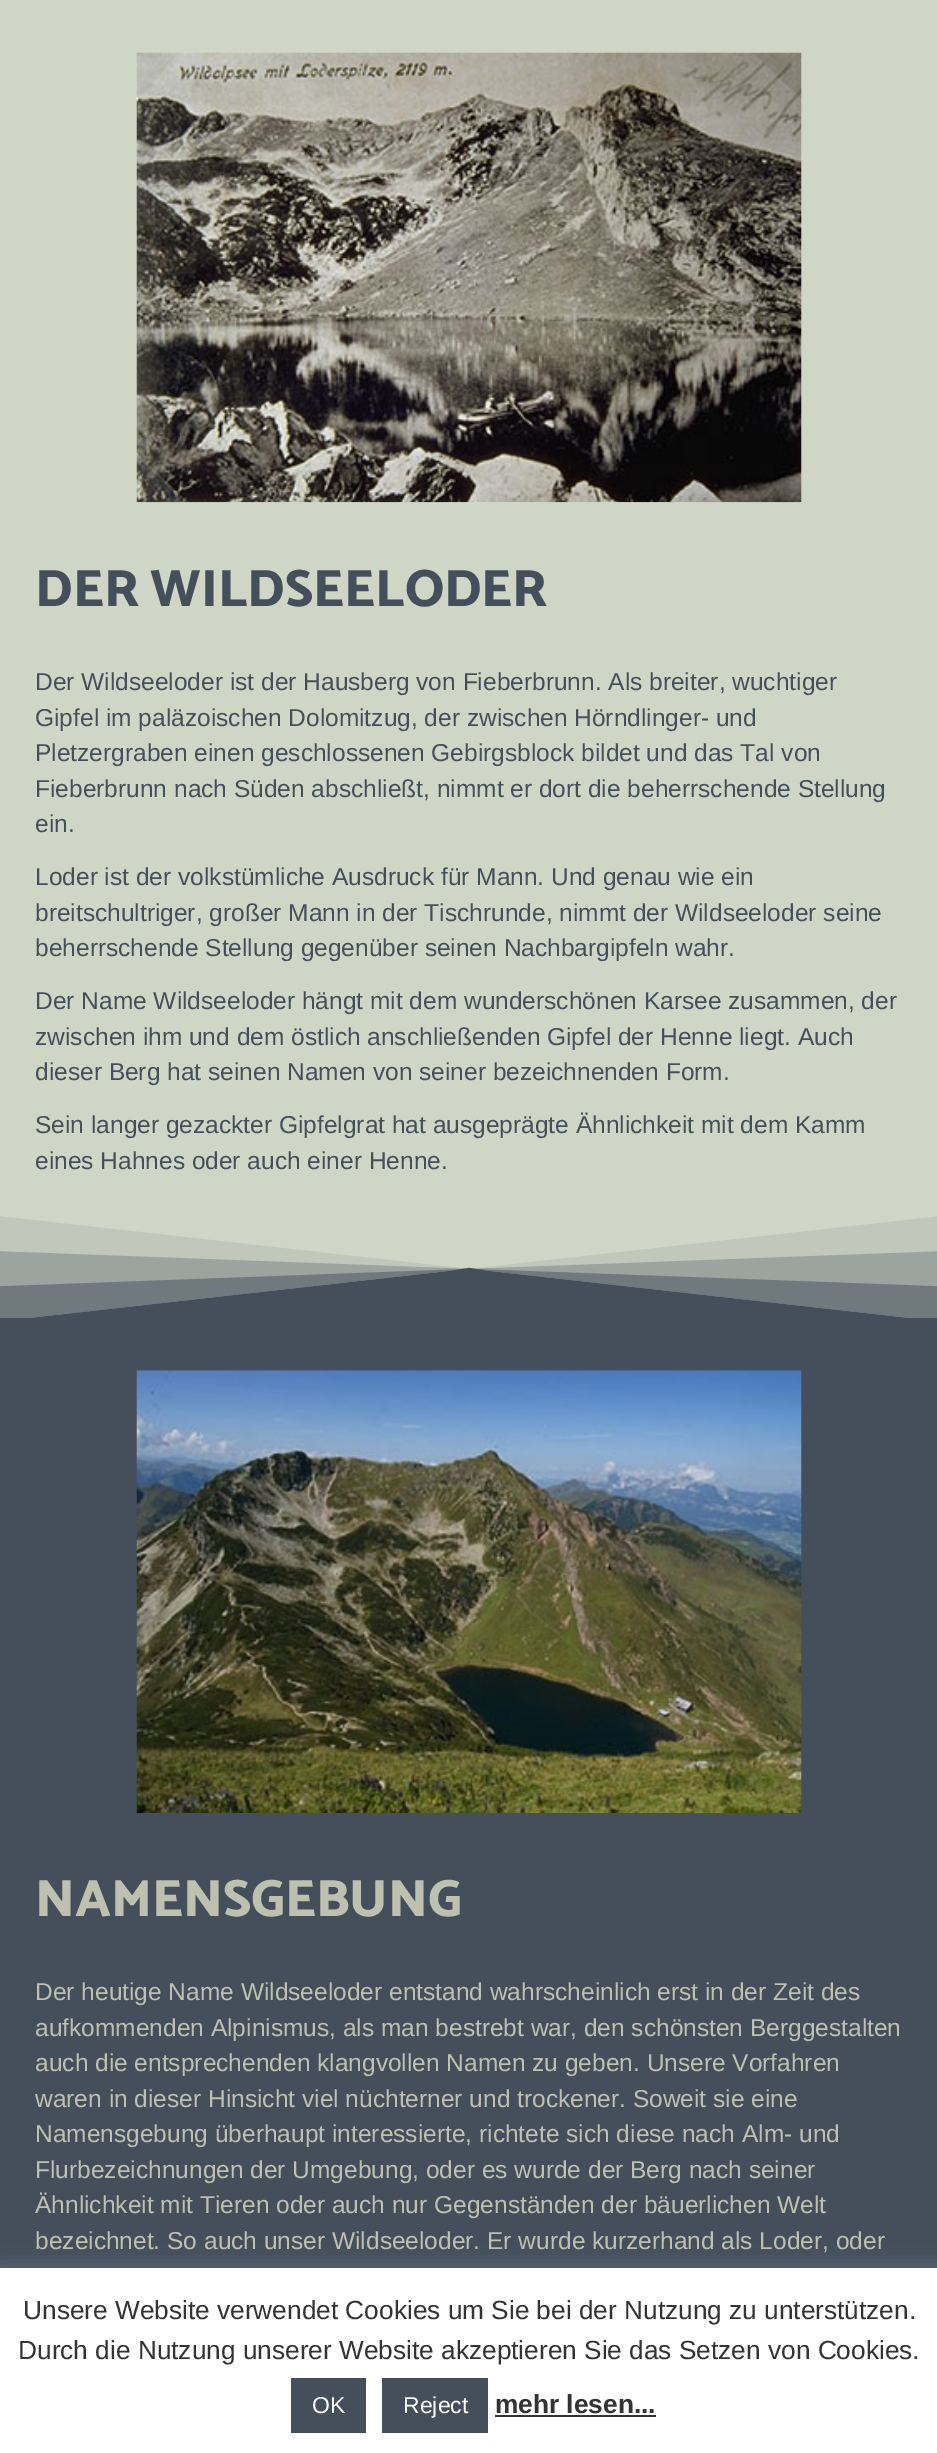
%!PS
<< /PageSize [937 2453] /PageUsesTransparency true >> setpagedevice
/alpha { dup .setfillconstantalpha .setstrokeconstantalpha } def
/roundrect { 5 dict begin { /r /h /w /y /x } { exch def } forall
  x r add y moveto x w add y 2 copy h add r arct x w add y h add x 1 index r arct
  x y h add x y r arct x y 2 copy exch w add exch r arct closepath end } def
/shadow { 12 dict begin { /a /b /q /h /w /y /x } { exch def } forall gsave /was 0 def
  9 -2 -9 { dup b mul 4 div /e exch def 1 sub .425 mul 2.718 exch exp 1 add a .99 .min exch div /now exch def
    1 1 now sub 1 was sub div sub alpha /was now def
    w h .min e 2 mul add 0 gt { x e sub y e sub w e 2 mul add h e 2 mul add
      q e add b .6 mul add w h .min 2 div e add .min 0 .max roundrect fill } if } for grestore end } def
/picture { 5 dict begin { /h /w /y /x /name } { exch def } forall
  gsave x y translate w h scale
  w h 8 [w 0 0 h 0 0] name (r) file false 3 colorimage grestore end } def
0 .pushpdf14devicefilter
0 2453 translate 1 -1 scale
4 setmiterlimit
0.812 0.839 0.776 setrgbcolor
0 0 937 2453 rectfill
(img1.rgb) 136 52 666 451 picture
/Catamaran-ExtraBold [52.5 0 0 -52.5 0 0] selectfont
0.271 0.31 0.357 setrgbcolor
35 606 moveto (DER WILDSEELODER) show
/LiberationSans-Regular [24.5 0 0 -24.5 0 0] selectfont
35 690 moveto (Der Wildseeloder ist der Hausberg von Fieberbrunn. Als breiter, wuchtiger) show
35 726 moveto (Gipfel im paläzoischen Dolomitzug, der zwischen Hörndlinger- und) show
35 761 moveto (Pletzergraben einen geschlossenen Gebirgsblock bildet und das Tal von) show
35 797 moveto (Fieberbrunn nach Süden abschließt, nimmt er dort die beherrschende Stellung) show
35 832 moveto (ein.) show
35 885 moveto (Loder ist der volkstümliche Ausdruck für Mann. Und genau wie ein) show
35 921 moveto (breitschultriger, großer Mann in der Tischrunde, nimmt der Wildseeloder seine) show
35 956 moveto (beherrschende Stellung gegenüber seinen Nachbargipfeln wahr.) show
35 1009 moveto (Der Name Wildseeloder hängt mit dem wunderschönen Karsee zusammen, der) show
35 1045 moveto (zwischen ihm und dem östlich anschließenden Gipfel der Henne liegt. Auch) show
35 1080 moveto (dieser Berg hat seinen Namen von seiner bezeichnenden Form.) show
35 1133 moveto (Sein langer gezackter Gipfelgrat hat ausgeprägte Ähnlichkeit mit dem Kamm) show
35 1169 moveto (eines Hahnes oder auch einer Henne.) show
(img2.rgb) 0 1216 937 102 picture
0 1318 937 950 rectfill
(img3.rgb) 136 1370 666 443 picture
/Catamaran-ExtraBold [52.5 0 0 -52.5 0 0] selectfont
0.749 0.757 0.69 setrgbcolor
35 1916 moveto (NAMENSGEBUNG) show
/LiberationSans-Regular [24.5 0 0 -24.5 0 0] selectfont
35 2000 moveto (Der heutige Name Wildseeloder entstand wahrscheinlich erst in der Zeit des) show
35 2036 moveto (aufkommenden Alpinismus, als man bestrebt war, den schönsten Berggestalten) show
35 2071 moveto (auch die entsprechenden klangvollen Namen zu geben. Unsere Vorfahren) show
35 2107 moveto (waren in dieser Hinsicht viel nüchterner und trockener. Soweit sie eine) show
35 2142 moveto (Namensgebung überhaupt interessierte, richtete sich diese nach Alm- und) show
35 2178 moveto (Flurbezeichnungen der Umgebung, oder es wurde der Berg nach seiner) show
35 2213 moveto (Ähnlichkeit mit Tieren oder auch nur Gegenständen der bäuerlichen Welt) show
35 2249 moveto (bezeichnet. So auch unser Wildseeloder. Er wurde kurzerhand als Loder, oder) show
0.675 0.671 0.671 setrgbcolor
0 2266 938 186 0 9 0.3 shadow
1 setgray
0 2268 937 185 rectfill
/LiberationSans-Regular [26.25 0 0 -26.25 0 0] selectfont
0.2 setgray
23 2319 moveto (Unsere Website verwendet Cookies um Sie bei der Nutzung zu unterstützen.) show
18 2359 moveto (Durch die Nutzung unserer Website akzeptieren Sie das Setzen von Cookies.) show
0.271 0.31 0.357 setrgbcolor
291 2378 75 55 rectfill
/LiberationSans-Regular [23 0 0 -23 0 0] selectfont
1 setgray
312 2413 moveto (OK) show
0.271 0.31 0.357 setrgbcolor
382 2378 106 55 rectfill
1 setgray
403 2413 moveto (Reject) show
/LiberationSans-Bold [26.25 0 0 -26.25 0 0] selectfont
0.2 setgray
495 2413 moveto (mehr lesen...) show
495 2415 161 2 rectfill
.poppdf14devicefilter showpage
